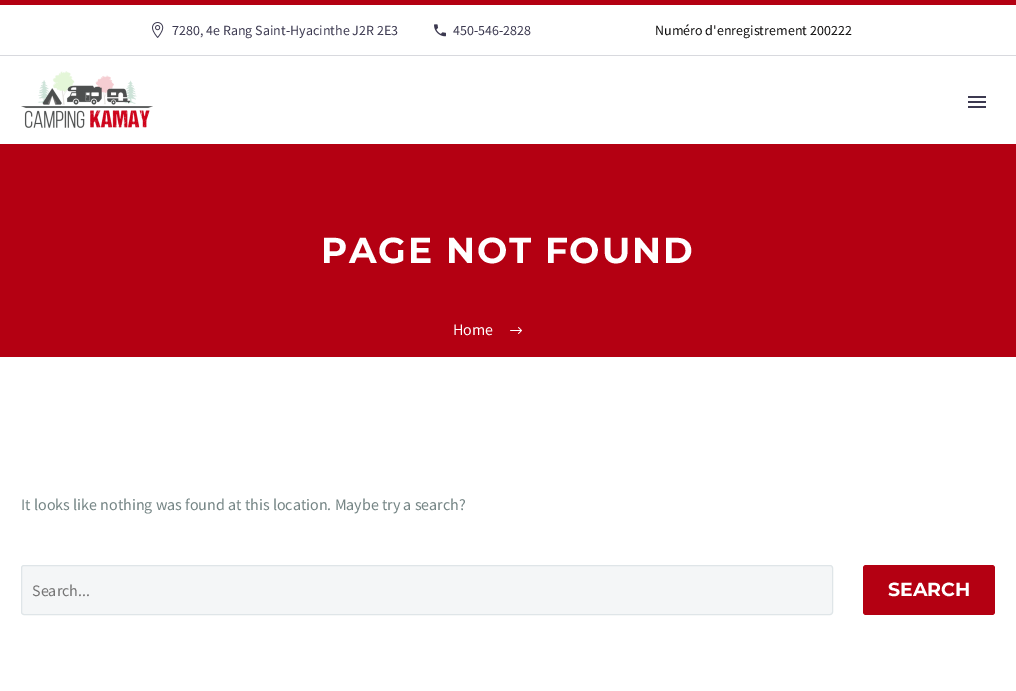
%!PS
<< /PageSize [1016 691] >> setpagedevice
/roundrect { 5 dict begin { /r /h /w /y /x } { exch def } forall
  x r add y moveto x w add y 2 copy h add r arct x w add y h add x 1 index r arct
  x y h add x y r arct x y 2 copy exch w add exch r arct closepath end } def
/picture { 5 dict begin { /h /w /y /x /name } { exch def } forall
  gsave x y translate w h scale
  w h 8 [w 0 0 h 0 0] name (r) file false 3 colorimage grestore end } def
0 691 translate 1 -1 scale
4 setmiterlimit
1 setgray
0 0 1016 691 rectfill
0.706 0 0.071 setrgbcolor
0 0 1016 5 rectfill
0.847 0.851 0.871 setrgbcolor
0 55 1016 1 rectfill
(img1.rgb) 152 22 12 16 picture
/SourceSansPro-Regular [14 0 0 -14 0 0] selectfont
0.235 0.224 0.314 setrgbcolor
172 35 moveto (7280, 4e Rang Saint-Hyacinthe J2R 2E3) show
(img2.rgb) 434 24 12 13 picture
453 35 moveto (450-546-2828) show
0.055 0.051 0.051 setrgbcolor
655 35 moveto (Numéro d'enregistrement 200222) show
(img3.rgb) 21 71 132 57 picture
0.235 0.224 0.314 setrgbcolor
968 96 18 2 rectfill
968 101 18 2 rectfill
968 106 18 2 rectfill
0.706 0 0.071 setrgbcolor
0 144 1016 213 rectfill
/Montserrat-Bold [36 0 0 -36 0 0] selectfont
1 setgray
321 263 moveto 1.75 0 (PAGE NOT FOUND) ashow
/SourceSansPro-Regular [16 0 0 -16 0 0] selectfont
453 335 moveto (Home) show
(img4.rgb) 510 327 12 7 picture
0.459 0.522 0.522 setrgbcolor
21 510 moveto (It looks like nothing was found at this location. Maybe try a search?) show
0.957 0.965 0.969 setrgbcolor
21.5 565.5 811 49 2.5 roundrect gsave fill grestore
0.875 0.898 0.91 setrgbcolor
stroke
0.459 setgray
32 596 moveto (Search...) show
0.706 0 0.071 setrgbcolor
863 565 132 50 3 roundrect fill
/Montserrat-Bold [19 0 0 -19 0 0] selectfont
1 setgray
888 596 moveto (SEARCH) show
showpage
